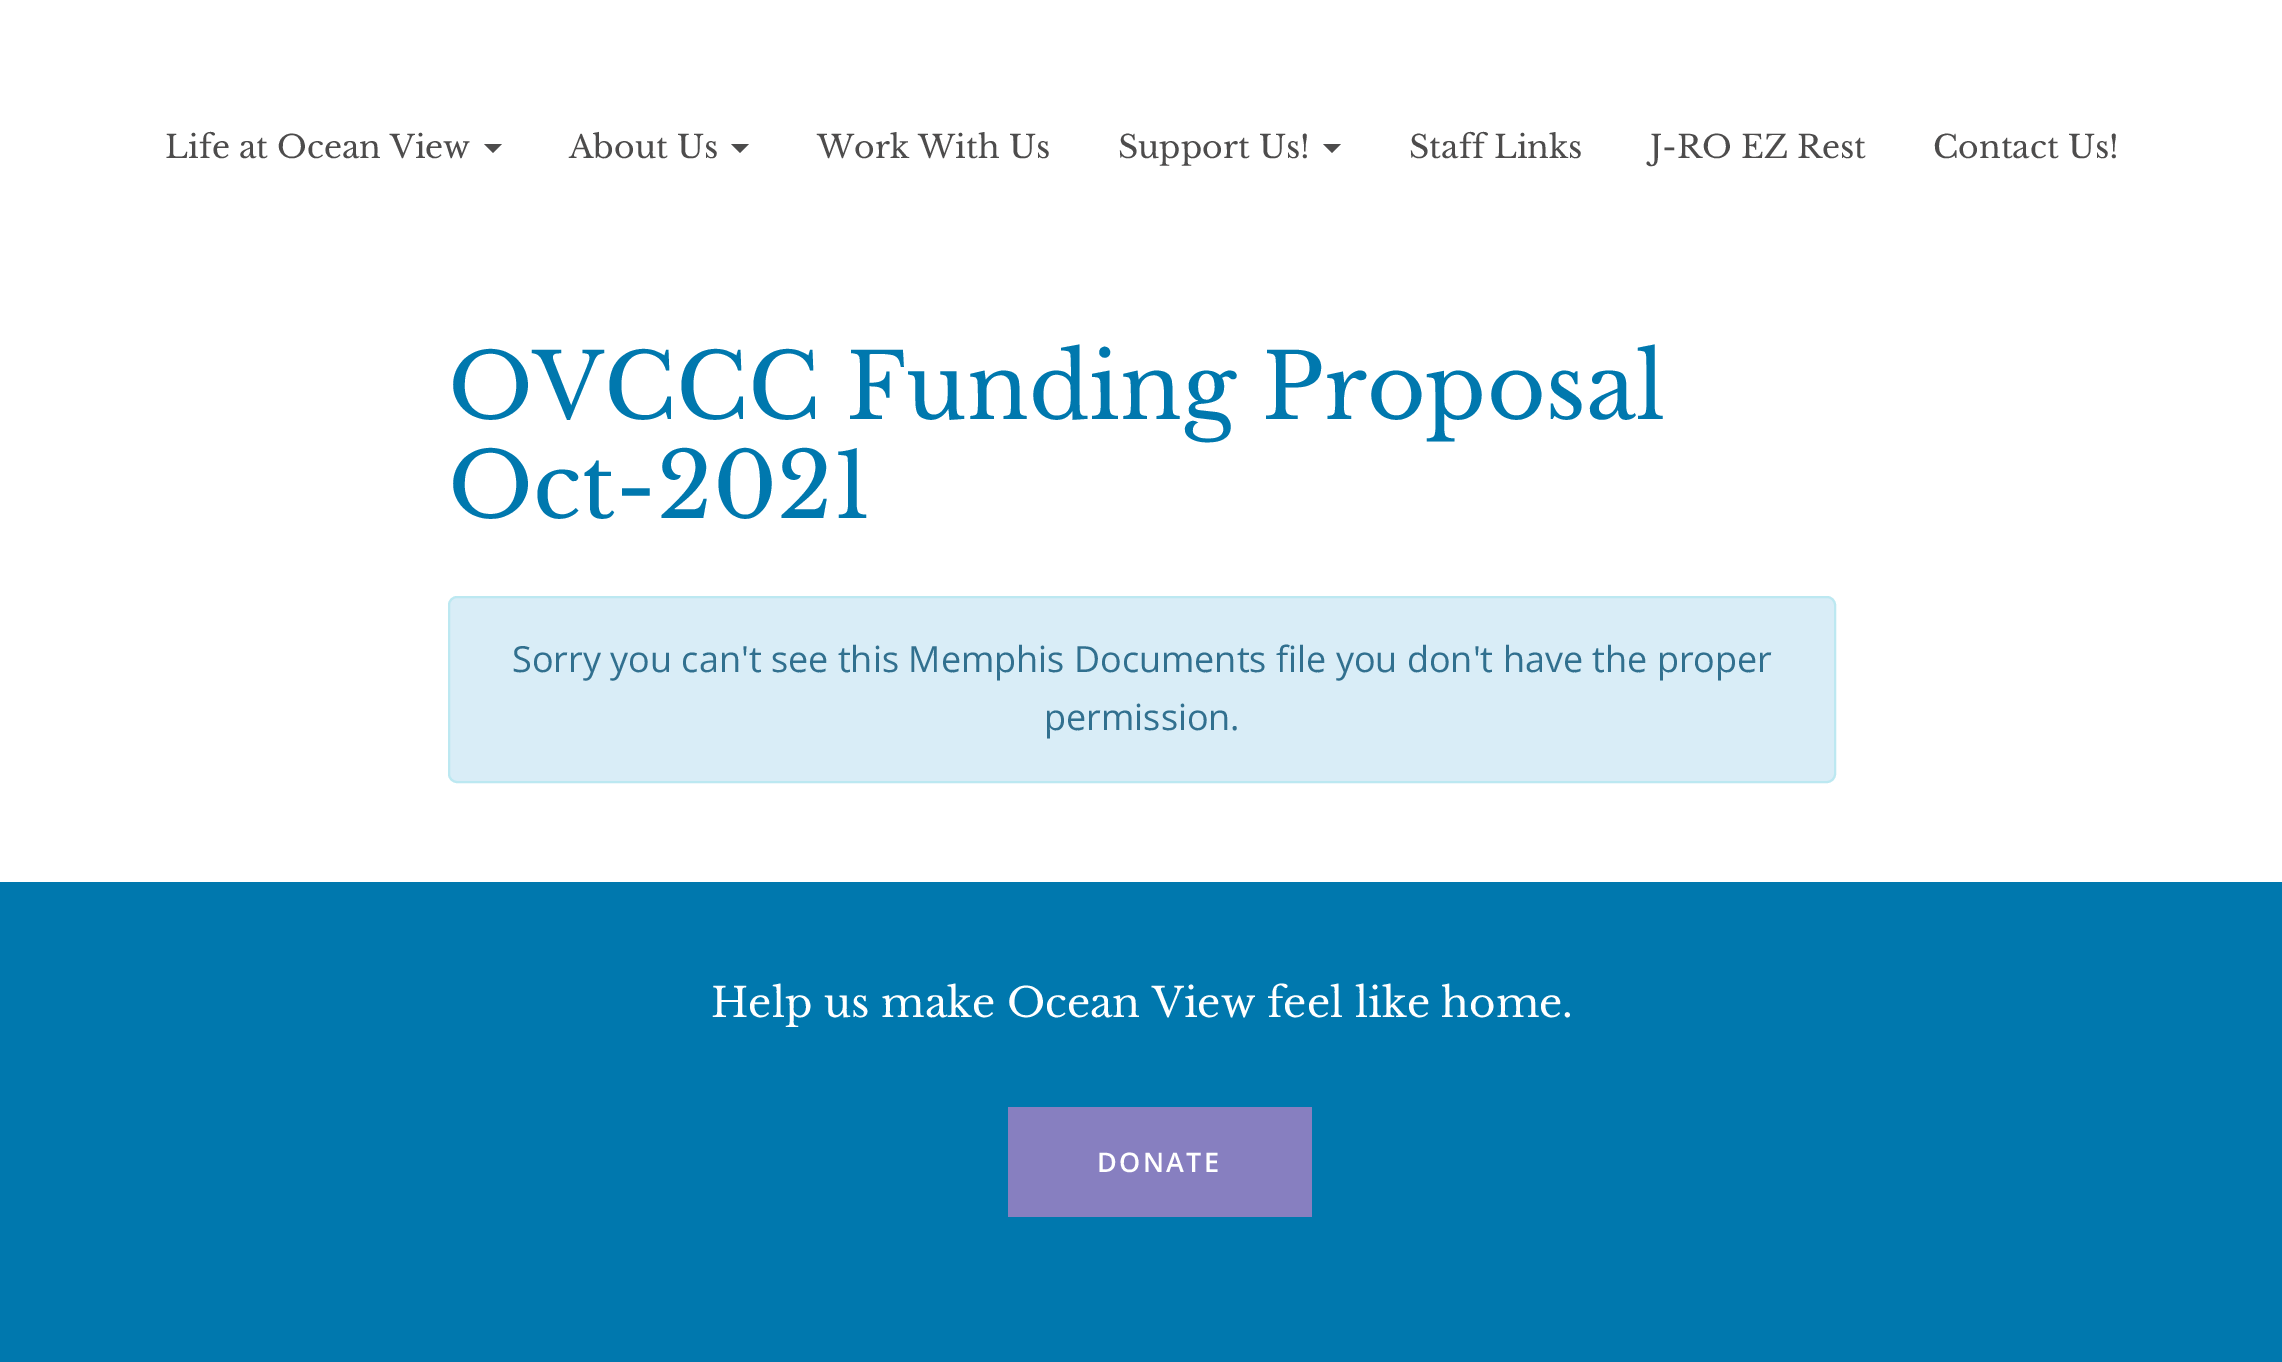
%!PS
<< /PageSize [2282 1362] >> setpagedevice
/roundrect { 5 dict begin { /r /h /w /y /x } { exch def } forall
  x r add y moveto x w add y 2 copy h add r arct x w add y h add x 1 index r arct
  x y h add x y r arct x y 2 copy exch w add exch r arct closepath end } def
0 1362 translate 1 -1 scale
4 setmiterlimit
1 setgray
0 0 2282 1362 rectfill
/LibreBaskerville-Regular [31.5 0 0 -31.5 0 0] selectfont
0.302 0.298 0.298 setrgbcolor
165 158 moveto (Life at Ocean View) show
newpath 484 144 moveto 502 144 lineto 493 153 lineto closepath fill
569 158 moveto (About Us) show
newpath 731 144 moveto 749 144 lineto 740 153 lineto closepath fill
817 158 moveto (Work With Us) show
1118 158 moveto (Support Us!) show
newpath 1323 144 moveto 1341 144 lineto 1332 153 lineto closepath fill
1409 158 moveto (Staff Links) show
1650 158 moveto (J-RO EZ Rest) show
1933 158 moveto (Contact Us!) show
/LibreBaskerville-Regular [90 0 0 -90 0 0] selectfont
0 0.471 0.682 setrgbcolor
448 419 moveto (OVCCC Funding Proposal) show
448 518 moveto (Oct-2021) show
0.851 0.929 0.969 setrgbcolor
449 597 1386 185 8 roundrect gsave fill grestore
0.737 0.91 0.945 setrgbcolor
2 setlinewidth
stroke
/OpenSans-Regular [36 0 0 -36 0 0] selectfont
0.192 0.439 0.561 setrgbcolor
512 672 moveto (Sorry you can't see this Memphis Documents file you don't have the proper) show
1044 730 moveto (permission.) show
0 0.471 0.682 setrgbcolor
0 882 2282 480 rectfill
/LibreBaskerville-Regular [40.5 0 0 -40.5 0 0] selectfont
1 setgray
711 1017 moveto (Help us make Ocean View feel like home.) show
0.529 0.498 0.753 setrgbcolor
1008 1107 304 110 rectfill
/OpenSans-SemiBold [27 0 0 -27 0 0] selectfont
1 setgray
1097 1172 moveto 2.25 0 (DONATE) ashow
showpage
